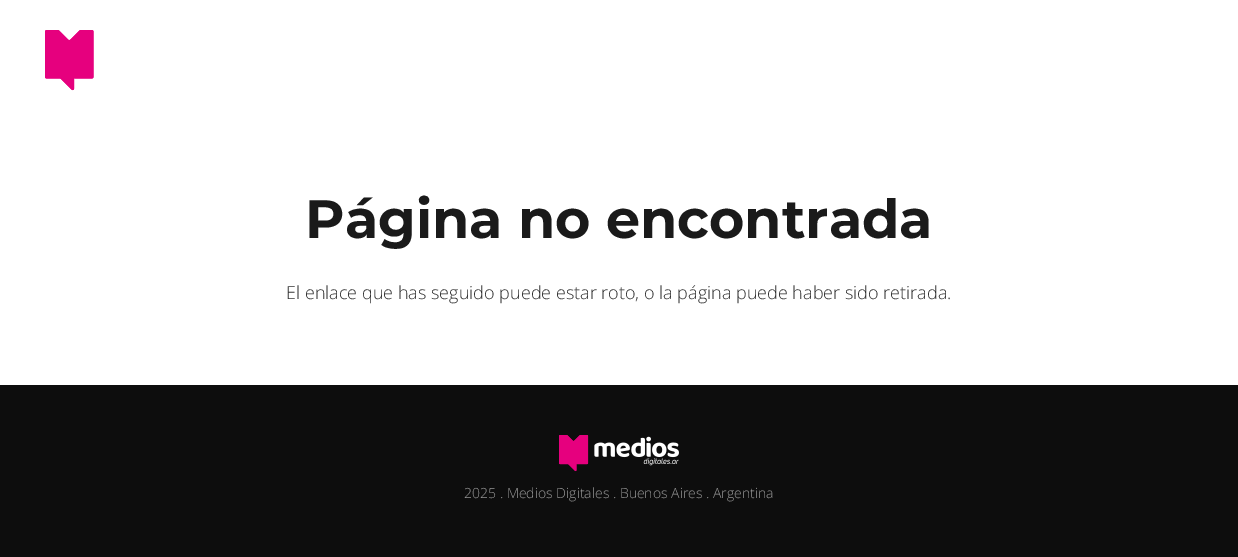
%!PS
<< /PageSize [1238 557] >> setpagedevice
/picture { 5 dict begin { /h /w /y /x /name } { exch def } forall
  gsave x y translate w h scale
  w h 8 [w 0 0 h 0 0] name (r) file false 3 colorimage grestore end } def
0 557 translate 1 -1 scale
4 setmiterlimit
1 setgray
0 0 1238 557 rectfill
(img1.rgb) 45 30 49 61 picture
/Montserrat-Bold [54 0 0 -54 0 0] selectfont
0.102 setgray
305 238 moveto (Página no encontrada) show
/OpenSans-Light [18 0 0 -18 0 0] selectfont
0.2 setgray
286 299 moveto (El enlace que has seguido puede estar roto, o la página puede haber sido retirada.) show
0.051 setgray
0 385 1238 172 rectfill
(img2.rgb) 559 435 120 37 picture
/OpenSans-Light [14 0 0 -14 0 0] selectfont
0.6 setgray
464 498 moveto (2025 . Medios Digitales . Buenos Aires . Argentina) show
showpage
